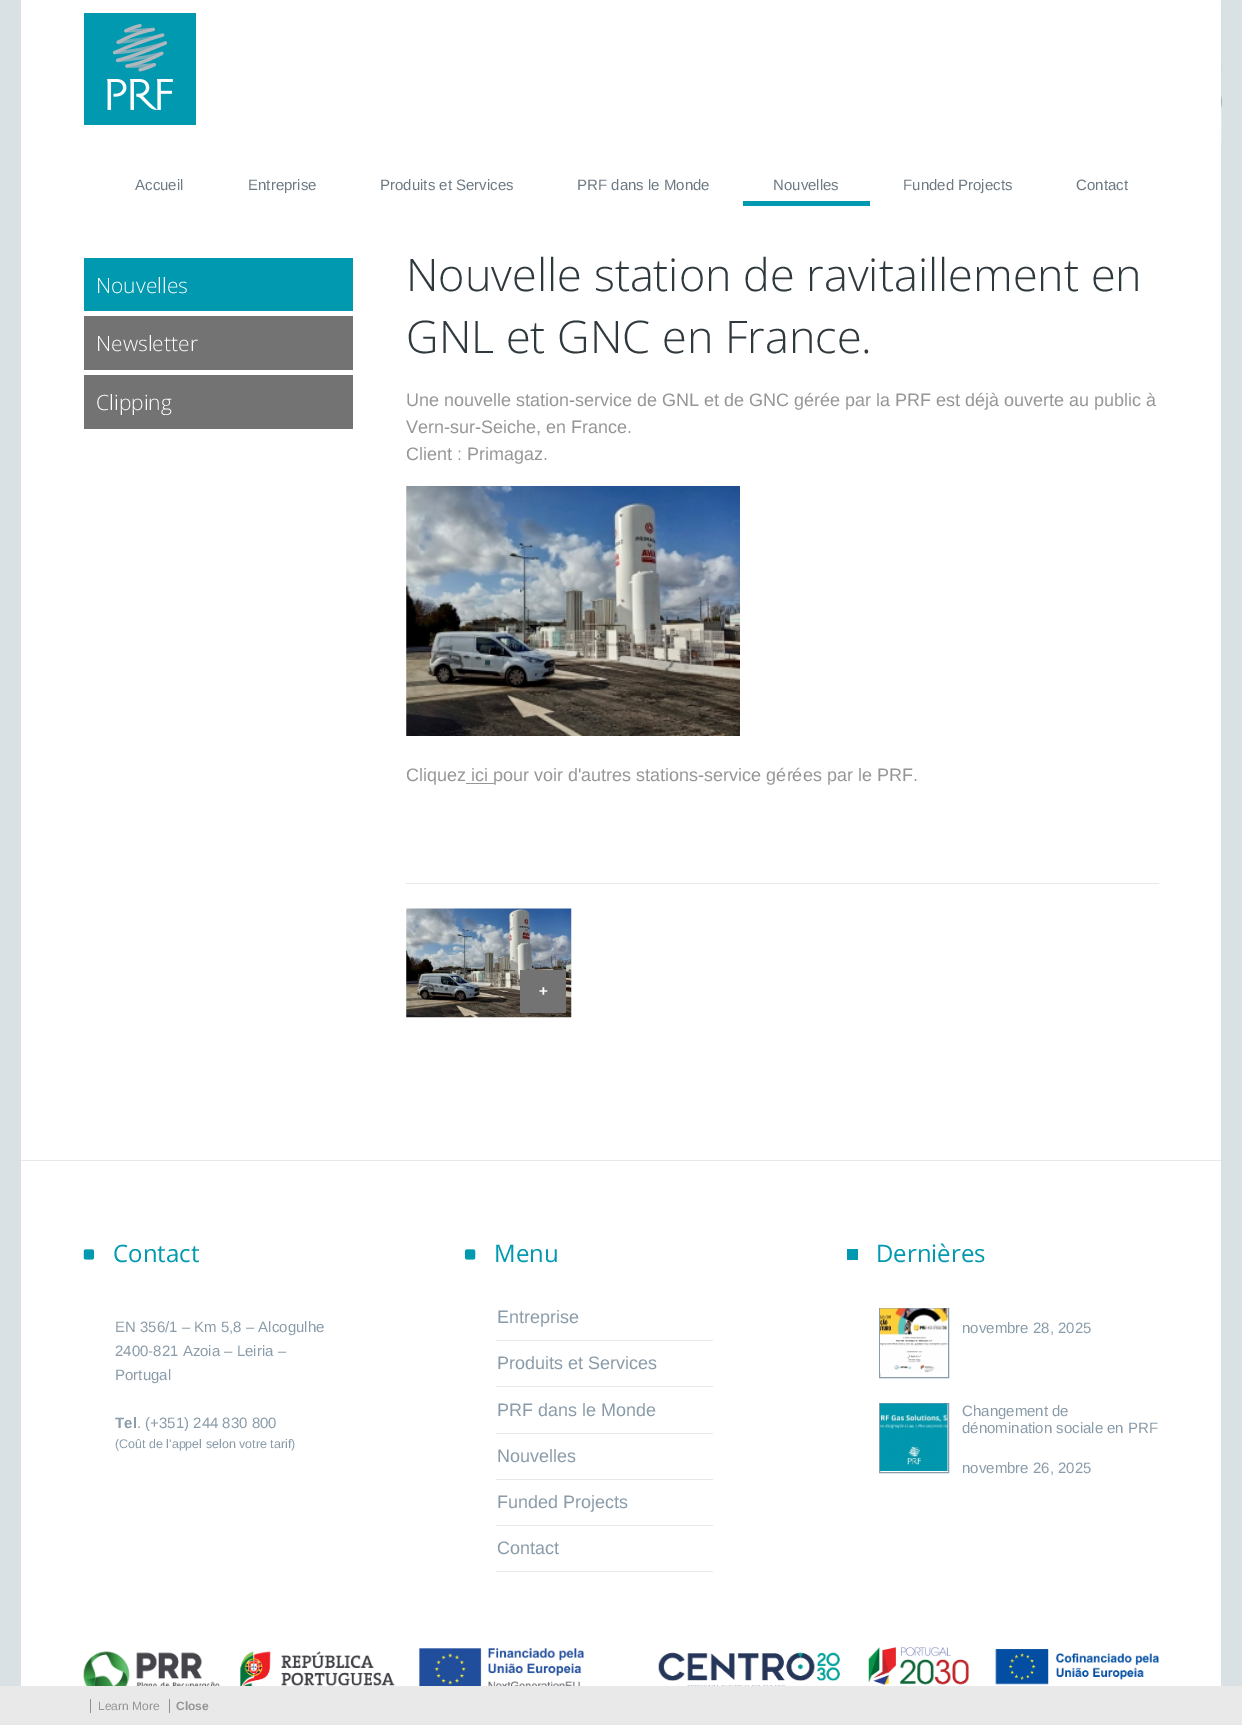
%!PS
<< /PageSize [1242 1725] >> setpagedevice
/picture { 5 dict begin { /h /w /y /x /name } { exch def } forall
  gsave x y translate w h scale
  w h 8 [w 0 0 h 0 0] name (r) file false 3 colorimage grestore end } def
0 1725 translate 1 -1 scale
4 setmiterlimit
0.851 0.882 0.898 setrgbcolor
0 0 1242 1725 rectfill
1 setgray
21 0 1200 1686 rectfill
(img1.rgb) 84 13 112 112 picture
/LiberationSans-Regular [15 0 0 -15 0 0] selectfont
0.427 0.478 0.514 setrgbcolor
135 190 moveto (Accueil) show
248 190 moveto (Entreprise) show
380 190 moveto (Produits et Services) show
577 190 moveto (PRF dans le Monde) show
0 0.6 0.686 setrgbcolor
743 201 127 5 rectfill
0.427 0.478 0.514 setrgbcolor
773 190 moveto (Nouvelles) show
903 190 moveto (Funded Projects) show
1076 190 moveto (Contact) show
(img2.rgb) 1221 14 1 127 picture
0 0.6 0.686 setrgbcolor
84 258 269 53 rectfill
/OpenSans-Light [21 0 0 -21 0 0] selectfont
1 setgray
96 293 moveto (Nouvelles) show
0.451 setgray
84 316 269 54 rectfill
1 setgray
96 351 moveto (Newsletter) show
0.451 setgray
84 375 269 54 rectfill
1 setgray
96 410 moveto (Clipping) show
/OpenSans-Light [45 0 0 -45 0 0] selectfont
0.184 0.22 0.239 setrgbcolor
406 291 moveto (Nouvelle station de ravitaillement en) show
406 353 moveto (GNL et GNC en France.) show
/LiberationSans-Regular [18 0 0 -18 0 0] selectfont
0.588 setgray
406 406 moveto (Une nouvelle station-service de GNL et de GNC gérée par la PRF est déjà ouverte au public à) show
406 433 moveto (Vern-sur-Seiche, en France.) show
406 460 moveto (Client : Primagaz.) show
(img3.rgb) 406 486 334 250 picture
406 781 moveto (Cliquez ici pour voir d'autres stations-service gérées par le PRF.) show
466 783 28 1 rectfill
0.902 0.914 0.918 setrgbcolor
406 883 753 1 rectfill
(img4.rgb) 406 908 166 110 picture
0.451 setgray
520 970 46 43 rectfill
/LiberationSans-Bold [15 0 0 -15 0 0] selectfont
1 setgray
539 996 moveto (+) show
0.902 0.914 0.918 setrgbcolor
21 1160 1200 1 rectfill
(img5.rgb) 83 1249 12 11 picture
/OpenSans-Regular [24 0 0 -24 0 0] selectfont
0 0.6 0.686 setrgbcolor
113 1262 moveto (Contact) show
/LiberationSans-Regular [15 0 0 -15 0 0] selectfont
0.541 0.612 0.663 setrgbcolor
115 1332 moveto (EN 356/1 – Km 5,8 – Alcogulhe) show
115 1356 moveto (2400-821 Azoia – Leiria –) show
115 1380 moveto (Portugal) show
/LiberationSans-Bold [15 0 0 -15 0 0] selectfont
115 1428 moveto (Tel) show
/LiberationSans-Regular [15 0 0 -15 0 0] selectfont
137 1428 moveto (. \(+351\) 244 830 800) show
/LiberationSans-Regular [12.5 0 0 -12.5 0 0] selectfont
115 1448 moveto (\(Coût de l'appel selon votre tarif\)) show
(img6.rgb) 465 1249 11 11 picture
/OpenSans-Regular [24 0 0 -24 0 0] selectfont
0 0.6 0.686 setrgbcolor
494 1262 moveto (Menu) show
0.902 0.914 0.918 setrgbcolor
496 1340 217 1 rectfill
/LiberationSans-Regular [18 0 0 -18 0 0] selectfont
0.541 0.612 0.663 setrgbcolor
497 1323 moveto (Entreprise) show
0.902 0.914 0.918 setrgbcolor
496 1386 217 1 rectfill
0.541 0.612 0.663 setrgbcolor
497 1369 moveto (Produits et Services) show
0.902 0.914 0.918 setrgbcolor
496 1433 217 1 rectfill
0.541 0.612 0.663 setrgbcolor
497 1416 moveto (PRF dans le Monde) show
0.902 0.914 0.918 setrgbcolor
496 1479 217 1 rectfill
0.541 0.612 0.663 setrgbcolor
497 1462 moveto (Nouvelles) show
0.902 0.914 0.918 setrgbcolor
496 1525 217 1 rectfill
0.541 0.612 0.663 setrgbcolor
497 1508 moveto (Funded Projects) show
0.902 0.914 0.918 setrgbcolor
496 1571 217 1 rectfill
0.541 0.612 0.663 setrgbcolor
497 1554 moveto (Contact) show
0 0.6 0.686 setrgbcolor
847 1249 11 11 rectfill
/OpenSans-Regular [24 0 0 -24 0 0] selectfont
876 1262 moveto (Dernières) show
0.541 0.612 0.663 setrgbcolor
879.5 1308.5 69 69 rectstroke
(img7.rgb) 880 1308 68 65 picture
/LiberationSans-Regular [15 0 0 -15 0 0] selectfont
962 1333 moveto (novembre 28, 2025) show
879.5 1403.5 69 69 rectstroke
(img8.rgb) 880 1403 68 68 picture
962 1416 moveto (Changement de) show
962 1433 moveto (dénomination sociale en PRF) show
962 1473 moveto (novembre 26, 2025) show
(img9.rgb) 83 1648 501 38 picture
(img10.rgb) 658 1647 501 39 picture
0.914 setgray
0 1686 1242 39 rectfill
/LiberationSans-Regular [12 0 0 -12 0 0] selectfont
0.588 setgray
98 1710 moveto (Learn More) show
0.569 setgray
90 1699 1 14 rectfill
/LiberationSans-Bold [12 0 0 -12 0 0] selectfont
0.588 setgray
176 1710 moveto (Close) show
0.569 setgray
169 1699 1 14 rectfill
showpage
